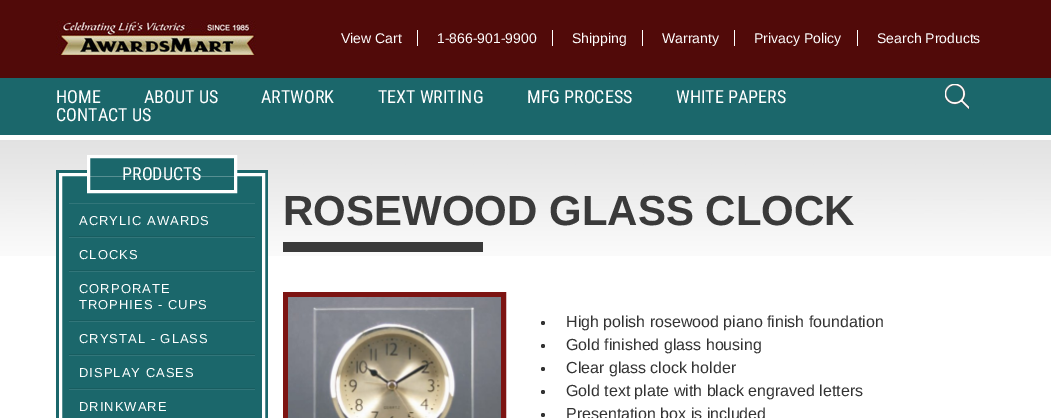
%!PS
<< /PageSize [1051 418] >> setpagedevice
/picture { 5 dict begin { /h /w /y /x /name } { exch def } forall
  gsave x y translate w h scale
  w h 8 [w 0 0 h 0 0] name (r) file false 3 colorimage grestore end } def
0 418 translate 1 -1 scale
4 setmiterlimit
1 setgray
0 0 1051 418 rectfill
0.318 0.039 0.035 setrgbcolor
0 0 1051 78 rectfill
(img1.rgb) 56 20 200 35 picture
1 setgray
417 30 1 16 rectfill
/LiberationSans-Regular [14 0 0 -14 0 0] selectfont
341 43 moveto (View Cart) show
552 30 1 16 rectfill
437 43 moveto (1-866-901-9900) show
642 30 1 16 rectfill
572 43 moveto (Shipping) show
734 30 1 16 rectfill
662 43 moveto (Warranty) show
857 30 1 16 rectfill
754 43 moveto (Privacy Policy) show
877 43 moveto (Search Products) show
0.106 0.404 0.42 setrgbcolor
0 78 1051 57 rectfill
/RobotoCondensed-Regular [18 0 0 -18 0 0] selectfont
1 setgray
56 103 moveto (HOME) show
144 103 moveto (ABOUT US) show
261 103 moveto (ARTWORK) show
378 103 moveto (TEXT WRITING) show
527 103 moveto (MFG PROCESS) show
676 103 moveto (WHITE PAPERS) show
56 121 moveto (CONTACT US) show
(img2.rgb) 945 84 25 25 picture
(img3.rgb) 0 140 1051 116 picture
0.106 0.404 0.42 setrgbcolor
56 170 212 248 rectfill
1 setgray
3 setlinewidth
60.5 174.5 203 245 rectstroke
0.106 0.404 0.42 setrgbcolor
90 158 144 18 rectfill
1 setgray
88.5 156.5 147 35 rectstroke
122 180 moveto (PRODUCTS) show
0.196 0.463 0.478 setrgbcolor
69 203 186 1 rectfill
0.094 0.365 0.376 setrgbcolor
69 236 186 1 rectfill
/LiberationSans-Regular [13 0 0 -13 0 0] selectfont
1 setgray
79 225 moveto 1 0 (ACRYLIC AWARDS) ashow
0.196 0.463 0.478 setrgbcolor
69 237 186 1 rectfill
0.094 0.365 0.376 setrgbcolor
69 270 186 1 rectfill
1 setgray
79 259 moveto 1 0 (CLOCKS) ashow
0.196 0.463 0.478 setrgbcolor
69 271 186 1 rectfill
0.094 0.365 0.376 setrgbcolor
69 320 186 1 rectfill
1 setgray
79 293 moveto 1 0 (CORPORATE) ashow
79 309 moveto 1 0 (TROPHIES - CUPS) ashow
0.196 0.463 0.478 setrgbcolor
69 321 186 1 rectfill
0.094 0.365 0.376 setrgbcolor
69 354 186 1 rectfill
1 setgray
79 343 moveto 1 0 (CRYSTAL - GLASS) ashow
0.196 0.463 0.478 setrgbcolor
69 355 186 1 rectfill
0.094 0.365 0.376 setrgbcolor
69 388 186 1 rectfill
1 setgray
79 377 moveto 1 0 (DISPLAY CASES) ashow
0.196 0.463 0.478 setrgbcolor
69 389 186 1 rectfill
1 setgray
79 411 moveto 1 0 (DRINKWARE) ashow
0.227 setgray
283 242 200 10 rectfill
/LiberationSans-Bold [42 0 0 -42 0 0] selectfont
283 225 moveto (ROSEWOOD GLASS CLOCK) show
0.49 0.078 0.071 setrgbcolor
5 setlinewidth
285.5 294.5 218 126 rectstroke
(img4.rgb) 288 297 213 121 picture
0.2 setgray
newpath 543 323 2 0 360 arc closepath fill
/LiberationSans-Regular [16 0 0 -16 0 0] selectfont
566 327 moveto (High polish rosewood piano finish foundation) show
newpath 543 346 2 0 360 arc closepath fill
566 350 moveto (Gold finished glass housing) show
newpath 543 369 2 0 360 arc closepath fill
566 373 moveto (Clear glass clock holder) show
newpath 543 392 2 0 360 arc closepath fill
566 396 moveto (Gold text plate with black engraved letters) show
newpath 543 415 2 0 360 arc closepath fill
566 419 moveto (Presentation box is included) show
showpage
